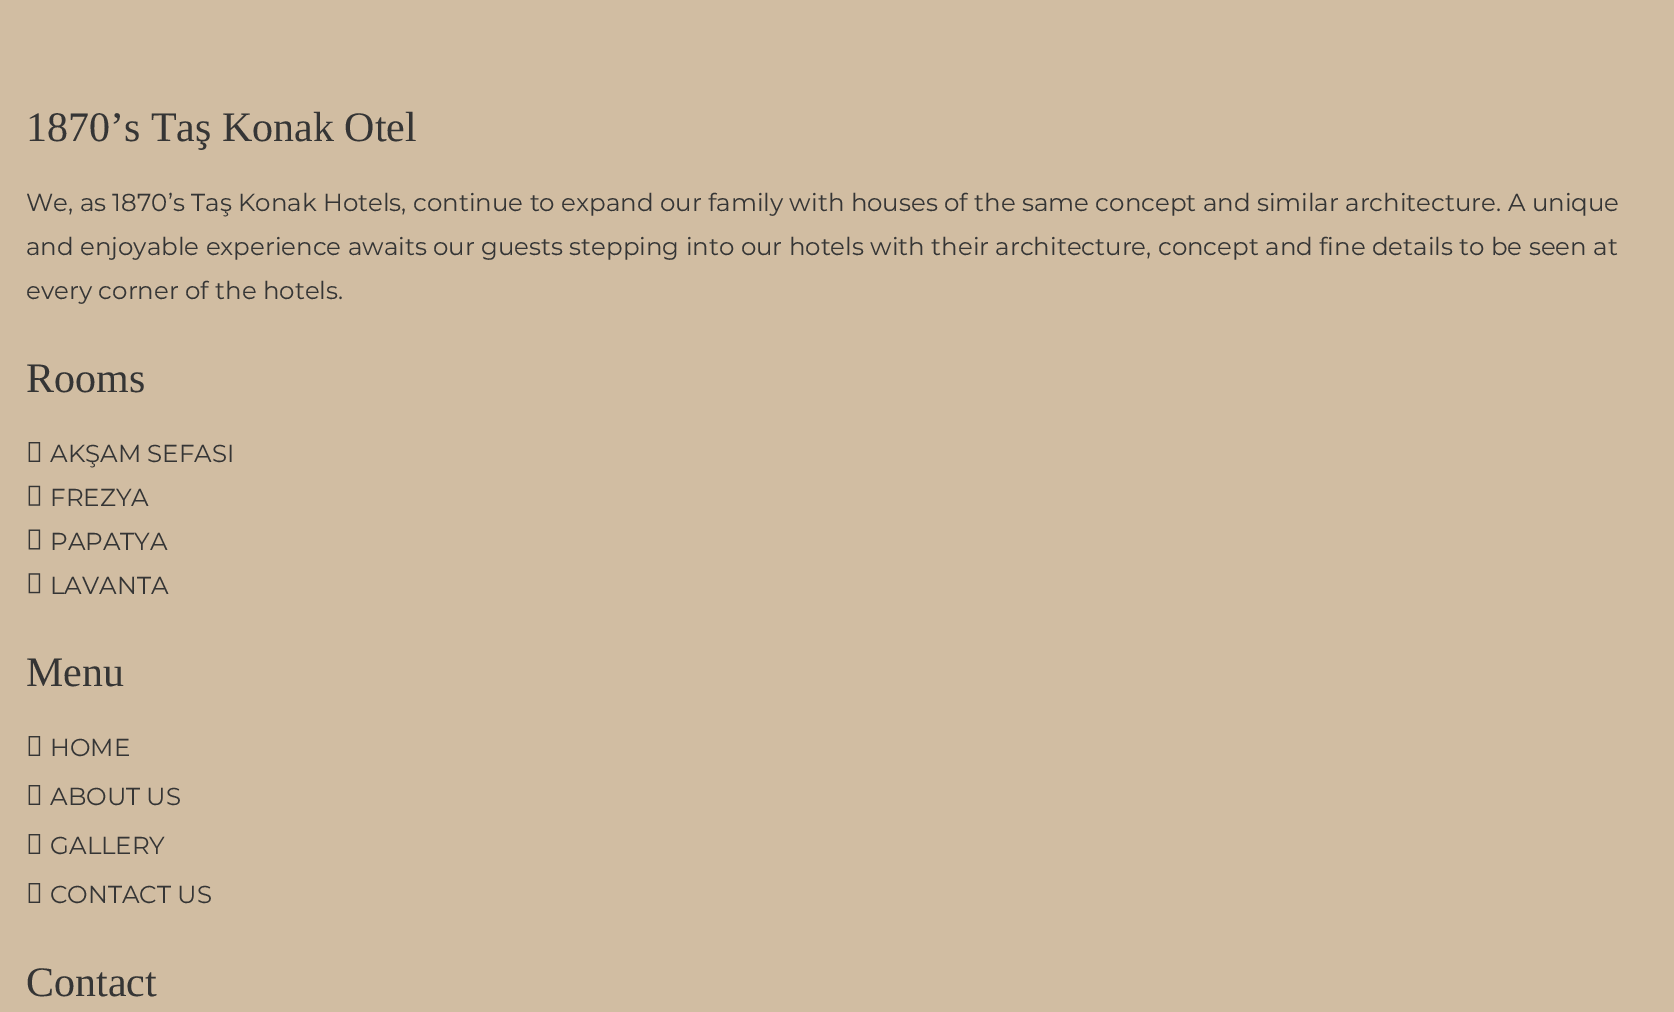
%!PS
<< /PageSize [1674 1012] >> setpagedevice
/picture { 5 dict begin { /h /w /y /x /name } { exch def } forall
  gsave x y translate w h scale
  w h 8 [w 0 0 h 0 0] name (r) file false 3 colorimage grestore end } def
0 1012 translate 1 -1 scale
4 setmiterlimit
0.82 0.741 0.635 setrgbcolor
0 0 1674 1012 rectfill
/LiberationSerif-Regular [42 0 0 -42 0 0] selectfont
0.208 setgray
26 141 moveto (1870’s Taş Konak Otel) show
/Montserrat-Regular [24.5 0 0 -24.5 0 0] selectfont
26 211 moveto (We, as 1870’s Taş Konak Hotels, continue to expand our family with houses of the same concept and similar architecture. A unique) show
26 255 moveto (and enjoyable experience awaits our guests stepping into our hotels with their architecture, concept and fine details to be seen at) show
26 299 moveto (every corner of the hotels.) show
/LiberationSerif-Regular [42 0 0 -42 0 0] selectfont
26 392 moveto (Rooms) show
(img1.rgb) 28 442 13 20 picture
/Montserrat-Regular [24.5 0 0 -24.5 0 0] selectfont
50 462 moveto (AKŞAM SEFASI) show
(img2.rgb) 28 485 13 21 picture
50 506 moveto (FREZYA) show
(img3.rgb) 28 529 13 21 picture
50 550 moveto (PAPATYA) show
(img4.rgb) 28 573 13 21 picture
50 594 moveto (LAVANTA) show
/LiberationSerif-Regular [42 0 0 -42 0 0] selectfont
26 686 moveto (Menu) show
(img1.rgb) 28 736 13 20 picture
/Montserrat-Regular [24.5 0 0 -24.5 0 0] selectfont
50 756 moveto (HOME) show
(img1.rgb) 28 785 13 20 picture
50 805 moveto (ABOUT US) show
(img1.rgb) 28 834 13 20 picture
50 854 moveto (GALLERY) show
(img1.rgb) 28 883 13 20 picture
50 903 moveto (CONTACT US) show
/LiberationSerif-Regular [42 0 0 -42 0 0] selectfont
26 996 moveto (Contact) show
showpage
